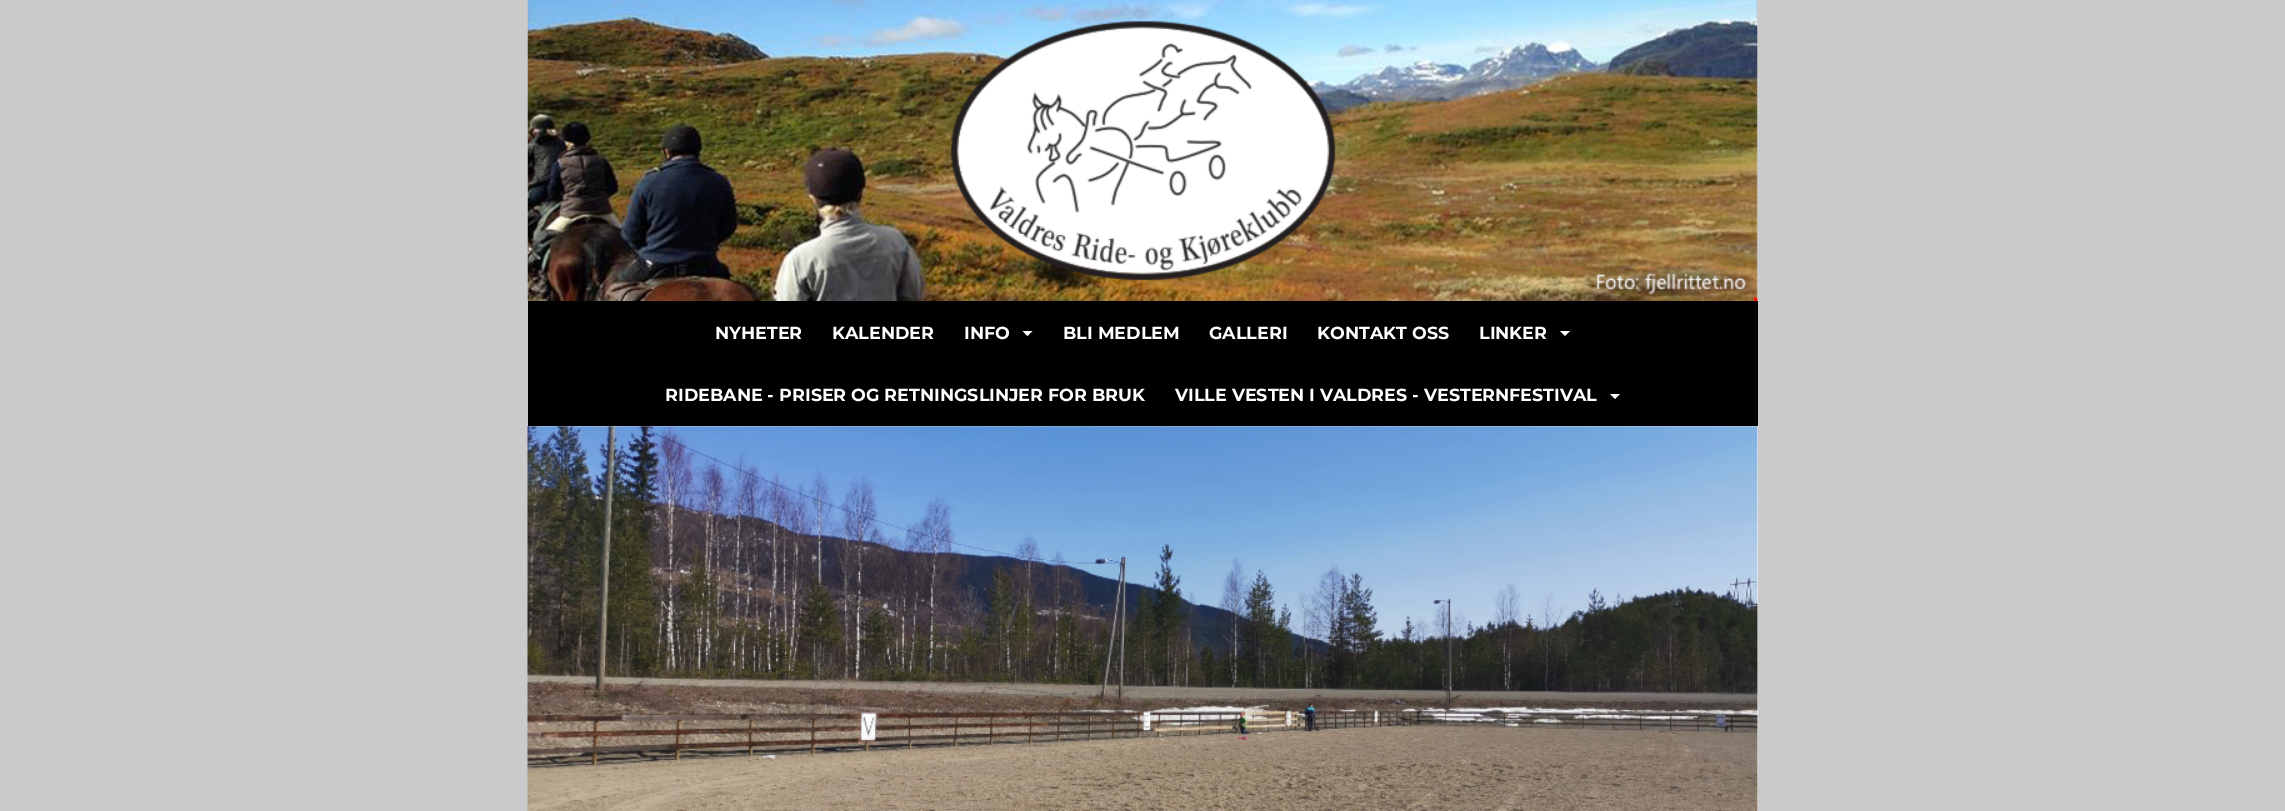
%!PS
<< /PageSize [2285 811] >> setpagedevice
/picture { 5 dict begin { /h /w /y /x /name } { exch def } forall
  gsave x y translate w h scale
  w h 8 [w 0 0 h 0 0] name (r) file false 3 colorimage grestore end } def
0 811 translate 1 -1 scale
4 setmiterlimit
0.792 setgray
0 0 2285 811 rectfill
(img1.rgb) 527 0 1231 301 picture
0 setgray
528 301 1230 125 rectfill
/Montserrat-Bold [17.5 0 0 -17.5 0 0] selectfont
1 setgray
715 339 moveto (NYHETER) show
832 339 moveto (KALENDER) show
964 339 moveto (INFO) show
newpath 1022.5 331 moveto 1032.5 331 lineto 1027.5 336 lineto closepath fill
1063 339 moveto (BLI MEDLEM) show
1209 339 moveto (GALLERI) show
1317 339 moveto (KONTAKT OSS) show
1479 339 moveto (LINKER) show
newpath 1560 331 moveto 1570 331 lineto 1565 336 lineto closepath fill
665 401 moveto (RIDEBANE - PRISER OG RETNINGSLINJER FOR BRUK) show
1175 401 moveto (VILLE VESTEN I VALDRES - VESTERNFESTIVAL) show
newpath 1610 394 moveto 1620 394 lineto 1615 399 lineto closepath fill
528 426 1230 385 rectfill
(img2.rgb) 527 426 1231 385 picture
showpage
